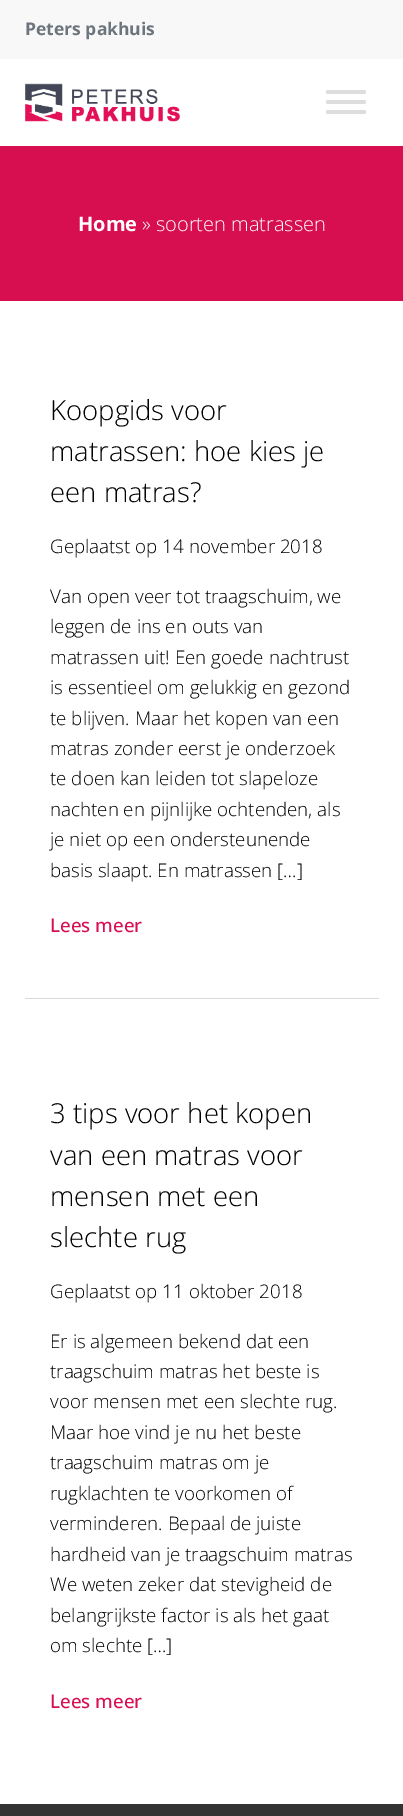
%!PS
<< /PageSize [403 1816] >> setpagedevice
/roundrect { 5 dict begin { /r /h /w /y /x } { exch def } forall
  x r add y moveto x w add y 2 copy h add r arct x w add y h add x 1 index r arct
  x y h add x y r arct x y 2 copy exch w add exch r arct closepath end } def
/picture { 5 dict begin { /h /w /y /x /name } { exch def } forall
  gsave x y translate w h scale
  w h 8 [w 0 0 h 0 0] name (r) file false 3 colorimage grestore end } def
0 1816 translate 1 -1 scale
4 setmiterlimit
1 setgray
0 0 403 1816 rectfill
0.973 setgray
0 0 403 59 rectfill
/OpenSans-Bold [17.5 0 0 -17.5 0 0] selectfont
0.424 0.459 0.49 setrgbcolor
25 35 moveto (Peters pakhuis) show
(img1.rgb) 25 83 155 39 picture
0.867 setgray
326 90 40 4 2 roundrect fill
326 100 40 4 2 roundrect fill
326 110 40 4 2 roundrect fill
0.843 0.059 0.318 setrgbcolor
0 146 403 155 rectfill
/OpenSans-Bold [20 0 0 -20 0 0] selectfont
1 setgray
78 231 moveto (Home) show
/OpenSans-Light [20 0 0 -20 0 0] selectfont
142 231 moveto (» soorten matrassen) show
0.851 setgray
25 998 354 1 rectfill
/OpenSans-Light [27.5 0 0 -27.5 0 0] selectfont
0 setgray
50 420 moveto (Koopgids voor) show
50 461 moveto (matrassen: hoe kies je) show
50 502 moveto (een matras?) show
/OpenSans-Light [18.75 0 0 -18.75 0 0] selectfont
50 553 moveto (Geplaatst op 14 november 2018) show
50 603 moveto (Van open veer tot traagschuim, we) show
50 633 moveto (leggen de ins en outs van) show
50 664 moveto (matrassen uit! Een goede nachtrust) show
50 694 moveto (is essentieel om gelukkig en gezond) show
50 725 moveto (te blijven. Maar het kopen van een) show
50 755 moveto (matras zonder eerst je onderzoek) show
50 785 moveto (te doen kan leiden tot slapeloze) show
50 816 moveto (nachten en pijnlijke ochtenden, als) show
50 846 moveto (je niet op een ondersteunende) show
50 877 moveto (basis slaapt. En matrassen […]) show
/OpenSans-Medium [18.75 0 0 -18.75 0 0] selectfont
0.843 0.059 0.318 setrgbcolor
50 932 moveto (Lees meer) show
/OpenSans-Light [27.5 0 0 -27.5 0 0] selectfont
0 setgray
50 1123 moveto (3 tips voor het kopen) show
50 1165 moveto (van een matras voor) show
50 1206 moveto (mensen met een) show
50 1247 moveto (slechte rug) show
/OpenSans-Light [18.75 0 0 -18.75 0 0] selectfont
50 1298 moveto (Geplaatst op 11 oktober 2018) show
50 1348 moveto (Er is algemeen bekend dat een) show
50 1378 moveto (traagschuim matras het beste is) show
50 1408 moveto (voor mensen met een slechte rug.) show
50 1439 moveto (Maar hoe vind je nu het beste) show
50 1469 moveto (traagschuim matras om je) show
50 1500 moveto (rugklachten te voorkomen of) show
50 1530 moveto (verminderen. Bepaal de juiste) show
50 1561 moveto (hardheid van je traagschuim matras) show
50 1591 moveto (We weten zeker dat stevigheid de) show
50 1622 moveto (belangrijkste factor is als het gaat) show
50 1652 moveto (om slechte […]) show
/OpenSans-Medium [18.75 0 0 -18.75 0 0] selectfont
0.843 0.059 0.318 setrgbcolor
50 1708 moveto (Lees meer) show
0.2 setgray
0 1804 403 12 rectfill
showpage
